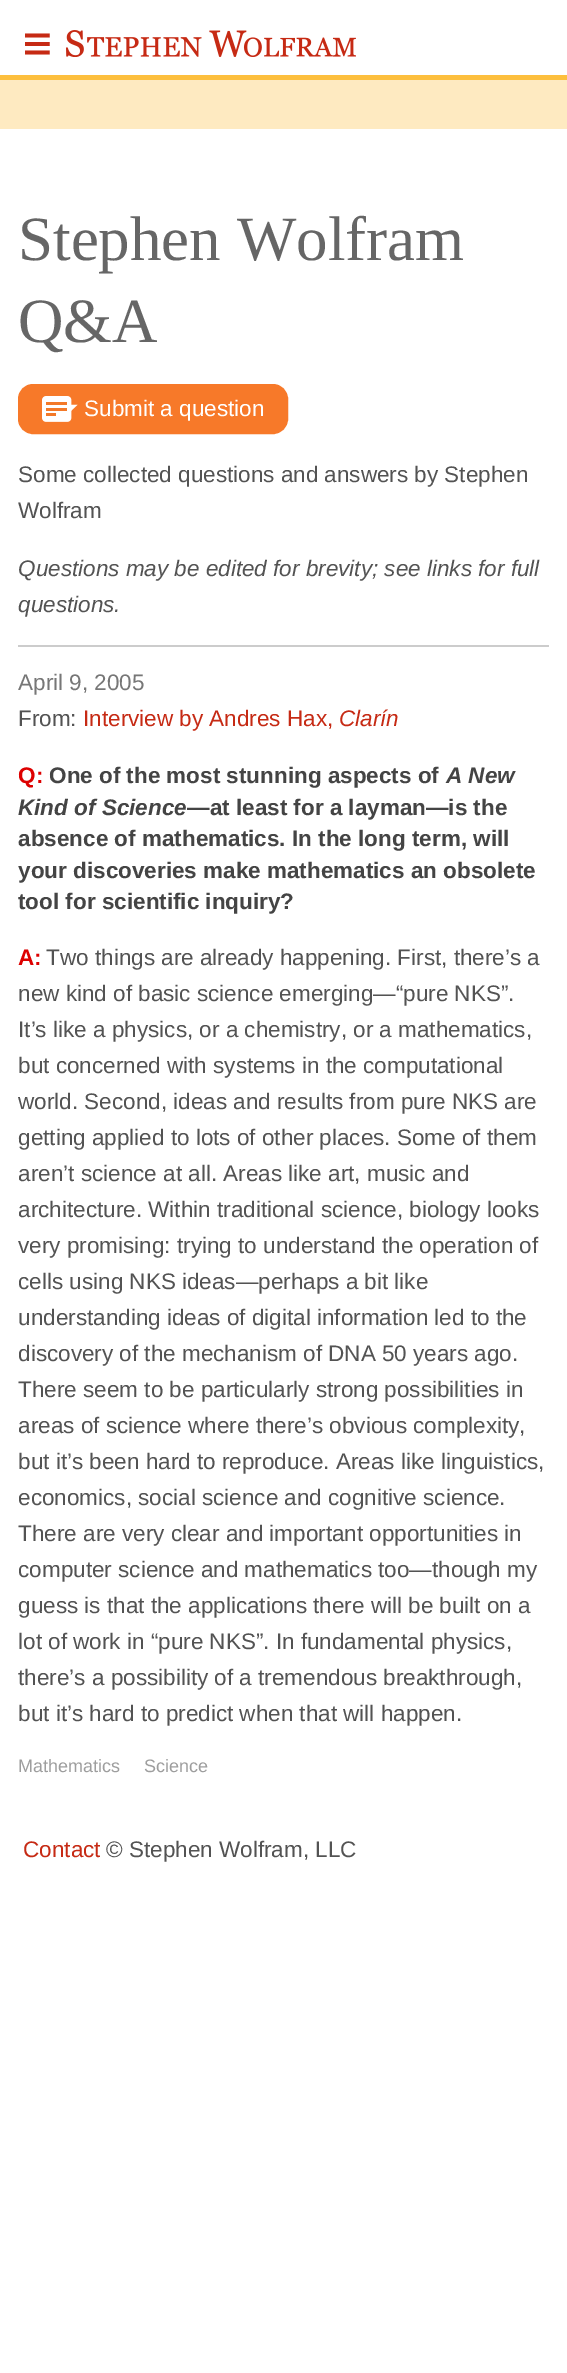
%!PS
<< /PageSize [567 2373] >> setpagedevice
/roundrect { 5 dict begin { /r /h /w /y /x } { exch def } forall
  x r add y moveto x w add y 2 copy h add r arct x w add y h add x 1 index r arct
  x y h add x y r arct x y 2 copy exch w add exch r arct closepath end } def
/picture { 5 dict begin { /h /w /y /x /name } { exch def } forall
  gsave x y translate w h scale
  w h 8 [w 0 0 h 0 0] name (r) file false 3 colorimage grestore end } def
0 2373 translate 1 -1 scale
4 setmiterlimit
1 setgray
0 0 567 2373 rectfill
/DejaVuSansMono-Regular [48 0 0 -48 0 0] selectfont
0.776 0.165 0.078 setrgbcolor
23 59 moveto (≡) show
(img1.rgb) 66 30 290 27 picture
0.996 0.918 0.757 setrgbcolor
0 80 567 49 rectfill
0.992 0.749 0.239 setrgbcolor
0 75 567 5 rectfill
/LiberationSerif-Regular [63 0 0 -63 0 0] selectfont
0.4 setgray
18 260 moveto (Stephen Wolfram) show
18 342 moveto (Q&A) show
0.969 0.475 0.161 setrgbcolor
19 385 268 48 14 roundrect gsave fill grestore
2 setlinewidth
stroke
(img2.rgb) 42 396 36 26 picture
/LiberationSans-Regular [22.5 0 0 -22.5 0 0] selectfont
1 setgray
84 416 moveto (Submit a question) show
0.325 setgray
18 482 moveto (Some collected questions and answers by Stephen) show
18 518 moveto (Wolfram) show
/LiberationSans-Italic [22.5 0 0 -22.5 0 0] selectfont
18 576 moveto (Questions may be edited for brevity; see links for full) show
18 612 moveto (questions.) show
0.8 setgray
18 645 531 2 rectfill
/LiberationSans-Regular [22.5 0 0 -22.5 0 0] selectfont
0.467 setgray
18 690 moveto (April 9, 2005) show
0.325 setgray
18 726 moveto (From:) show
0.776 0.165 0.078 setrgbcolor
83 726 moveto (Interview by Andres Hax,) show
/LiberationSans-Italic [22.5 0 0 -22.5 0 0] selectfont
339 726 moveto (Clarín) show
/LiberationSans-Bold [22.5 0 0 -22.5 0 0] selectfont
0.867 0 0 setrgbcolor
18 783 moveto (Q:) show
0.267 setgray
49 783 moveto (One of the most stunning aspects of) show
/LiberationSans-BoldItalic [22.5 0 0 -22.5 0 0] selectfont
446 783 moveto (A New) show
18 815 moveto (Kind of Science) show
/LiberationSans-Bold [22.5 0 0 -22.5 0 0] selectfont
187 815 moveto (—at least for a layman—is the) show
18 846 moveto (absence of mathematics. In the long term, will) show
18 878 moveto (your discoveries make mathematics an obsolete) show
18 909 moveto (tool for scientific inquiry?) show
/LiberationSans-Regular [22.5 0 0 -22.5 0 0] selectfont
0.325 setgray
46 965 moveto (Two things are already happening. First, there’s a) show
18 1001 moveto (new kind of basic science emerging—“pure NKS”.) show
18 1037 moveto (It’s like a physics, or a chemistry, or a mathematics,) show
18 1073 moveto (but concerned with systems in the computational) show
18 1109 moveto (world. Second, ideas and results from pure NKS are) show
18 1145 moveto (getting applied to lots of other places. Some of them) show
18 1181 moveto (aren’t science at all. Areas like art, music and) show
18 1217 moveto (architecture. Within traditional science, biology looks) show
18 1253 moveto (very promising: trying to understand the operation of) show
18 1289 moveto (cells using NKS ideas—perhaps a bit like) show
18 1325 moveto (understanding ideas of digital information led to the) show
18 1361 moveto (discovery of the mechanism of DNA 50 years ago.) show
18 1397 moveto (There seem to be particularly strong possibilities in) show
18 1433 moveto (areas of science where there’s obvious complexity,) show
18 1469 moveto (but it’s been hard to reproduce. Areas like linguistics,) show
18 1505 moveto (economics, social science and cognitive science.) show
18 1541 moveto (There are very clear and important opportunities in) show
18 1577 moveto (computer science and mathematics too—though my) show
18 1613 moveto (guess is that the applications there will be built on a) show
18 1649 moveto (lot of work in “pure NKS”. In fundamental physics,) show
18 1685 moveto (there’s a possibility of a tremendous breakthrough,) show
18 1721 moveto (but it’s hard to predict when that will happen.) show
/LiberationSans-Bold [22.5 0 0 -22.5 0 0] selectfont
0.867 0 0 setrgbcolor
18 965 moveto (A:) show
/LiberationSans-Regular [18 0 0 -18 0 0] selectfont
0.62 setgray
18 1772 moveto (Mathematics) show
144 1772 moveto (Science) show
/LiberationSans-Regular [22.5 0 0 -22.5 0 0] selectfont
0.776 0.165 0.078 setrgbcolor
23 1857 moveto (Contact) show
0.325 setgray
106 1857 moveto (© Stephen Wolfram, LLC) show
showpage
